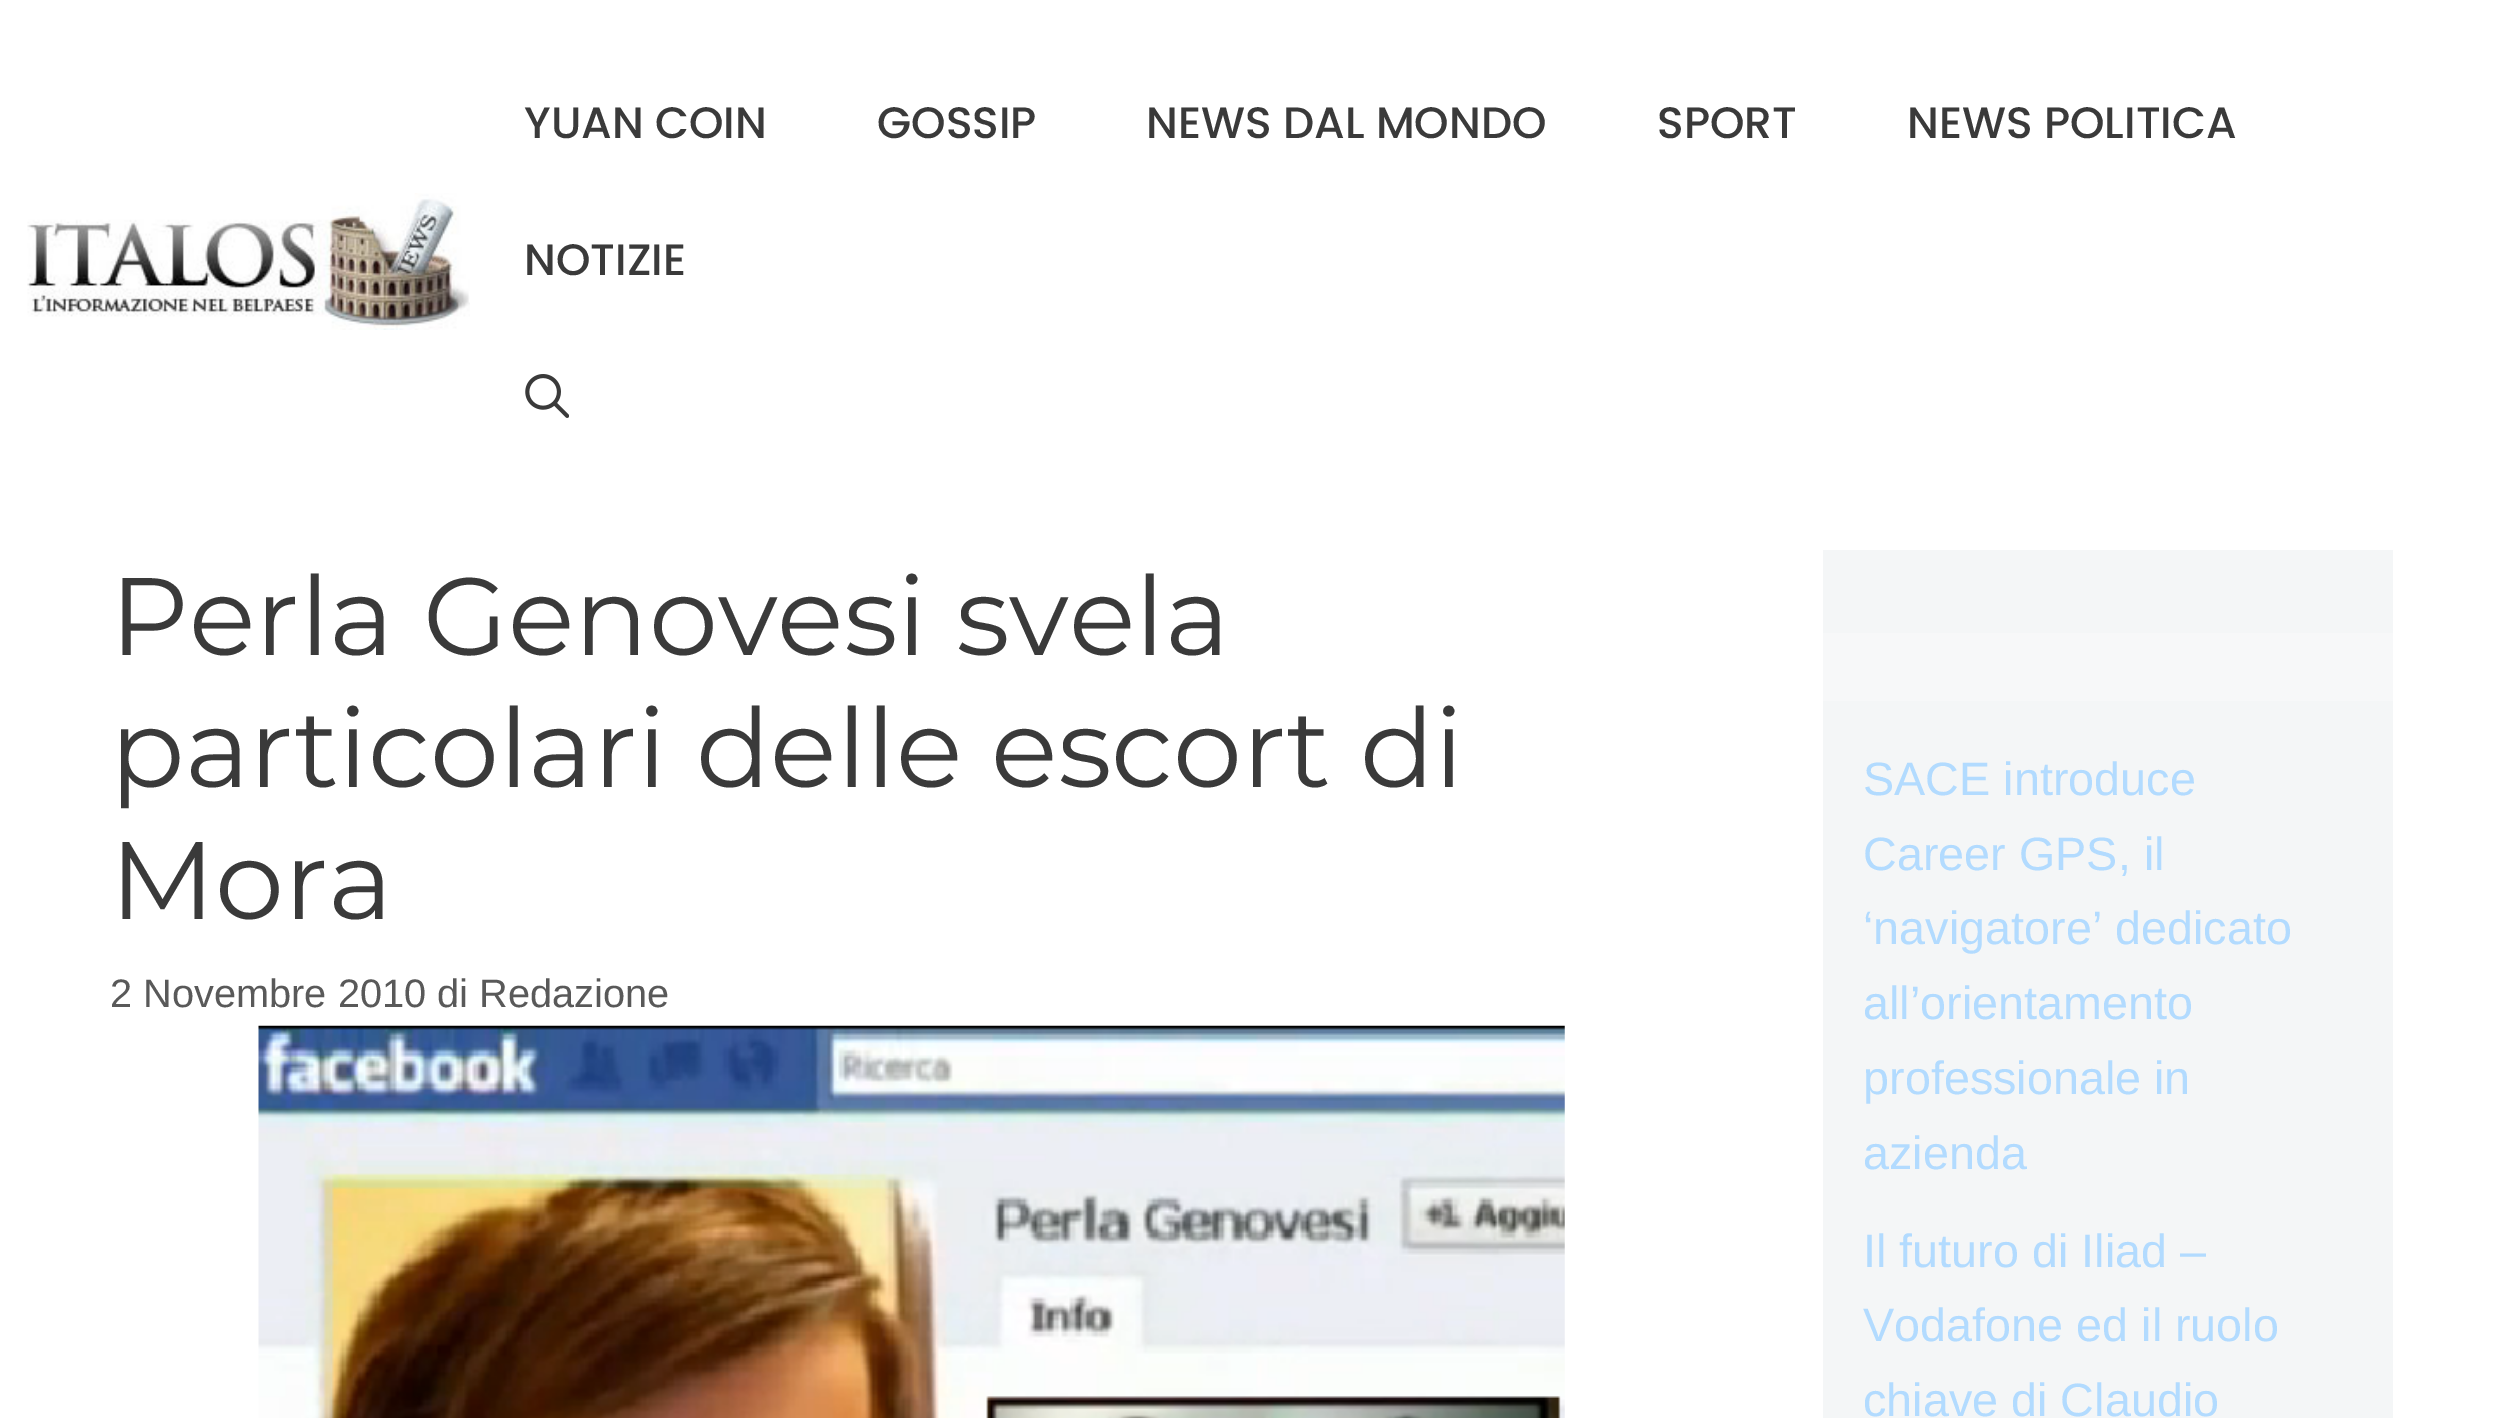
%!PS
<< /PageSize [2501 1418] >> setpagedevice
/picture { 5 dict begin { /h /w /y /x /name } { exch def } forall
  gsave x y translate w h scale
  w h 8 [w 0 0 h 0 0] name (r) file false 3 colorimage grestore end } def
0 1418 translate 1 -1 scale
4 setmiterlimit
1 setgray
0 0 2501 1418 rectfill
(img1.rgb) 27 193 443 137 picture
/Poppins-Medium [44 0 0 -44 0 0] selectfont
0.227 setgray
524 138 moveto (YUAN COIN) show
877 138 moveto (GOSSIP) show
1146 138 moveto (NEWS DAL MONDO) show
1657 138 moveto (SPORT) show
1907 138 moveto (NEWS POLITICA) show
524 275 moveto (NOTIZIE) show
(img2.rgb) 525 374 44 44 picture
/Montserrat-Regular [110 0 0 -110 0 0] selectfont
110 655 moveto (Perla Genovesi svela) show
110 787 moveto (particolari delle escort di) show
110 919 moveto (Mora) show
/LiberationSans-Regular [39.75 0 0 -39.75 0 0] selectfont
0.349 setgray
110 1007 moveto (2 Novembre 2010 di Redazione) show
(img3.rgb) 258 1025 1307 393 picture
0.969 0.973 0.976 setrgbcolor
1823 633 570 68 rectfill
0.957 0.965 0.969 setrgbcolor
1823 550 570 83 rectfill
1823 701 570 717 rectfill
/LiberationSans-Regular [46.75 0 0 -46.75 0 0] selectfont
0.698 0.859 1 setrgbcolor
1863 795 moveto (SACE introduce) show
1863 870 moveto (Career GPS, il) show
1863 944 moveto (‘navigatore’ dedicato) show
1863 1019 moveto (all’orientamento) show
1863 1094 moveto (professionale in) show
1863 1169 moveto (azienda) show
1863 1267 moveto (Il futuro di Iliad –) show
1863 1341 moveto (Vodafone ed il ruolo) show
1863 1416 moveto (chiave di Claudio) show
showpage
